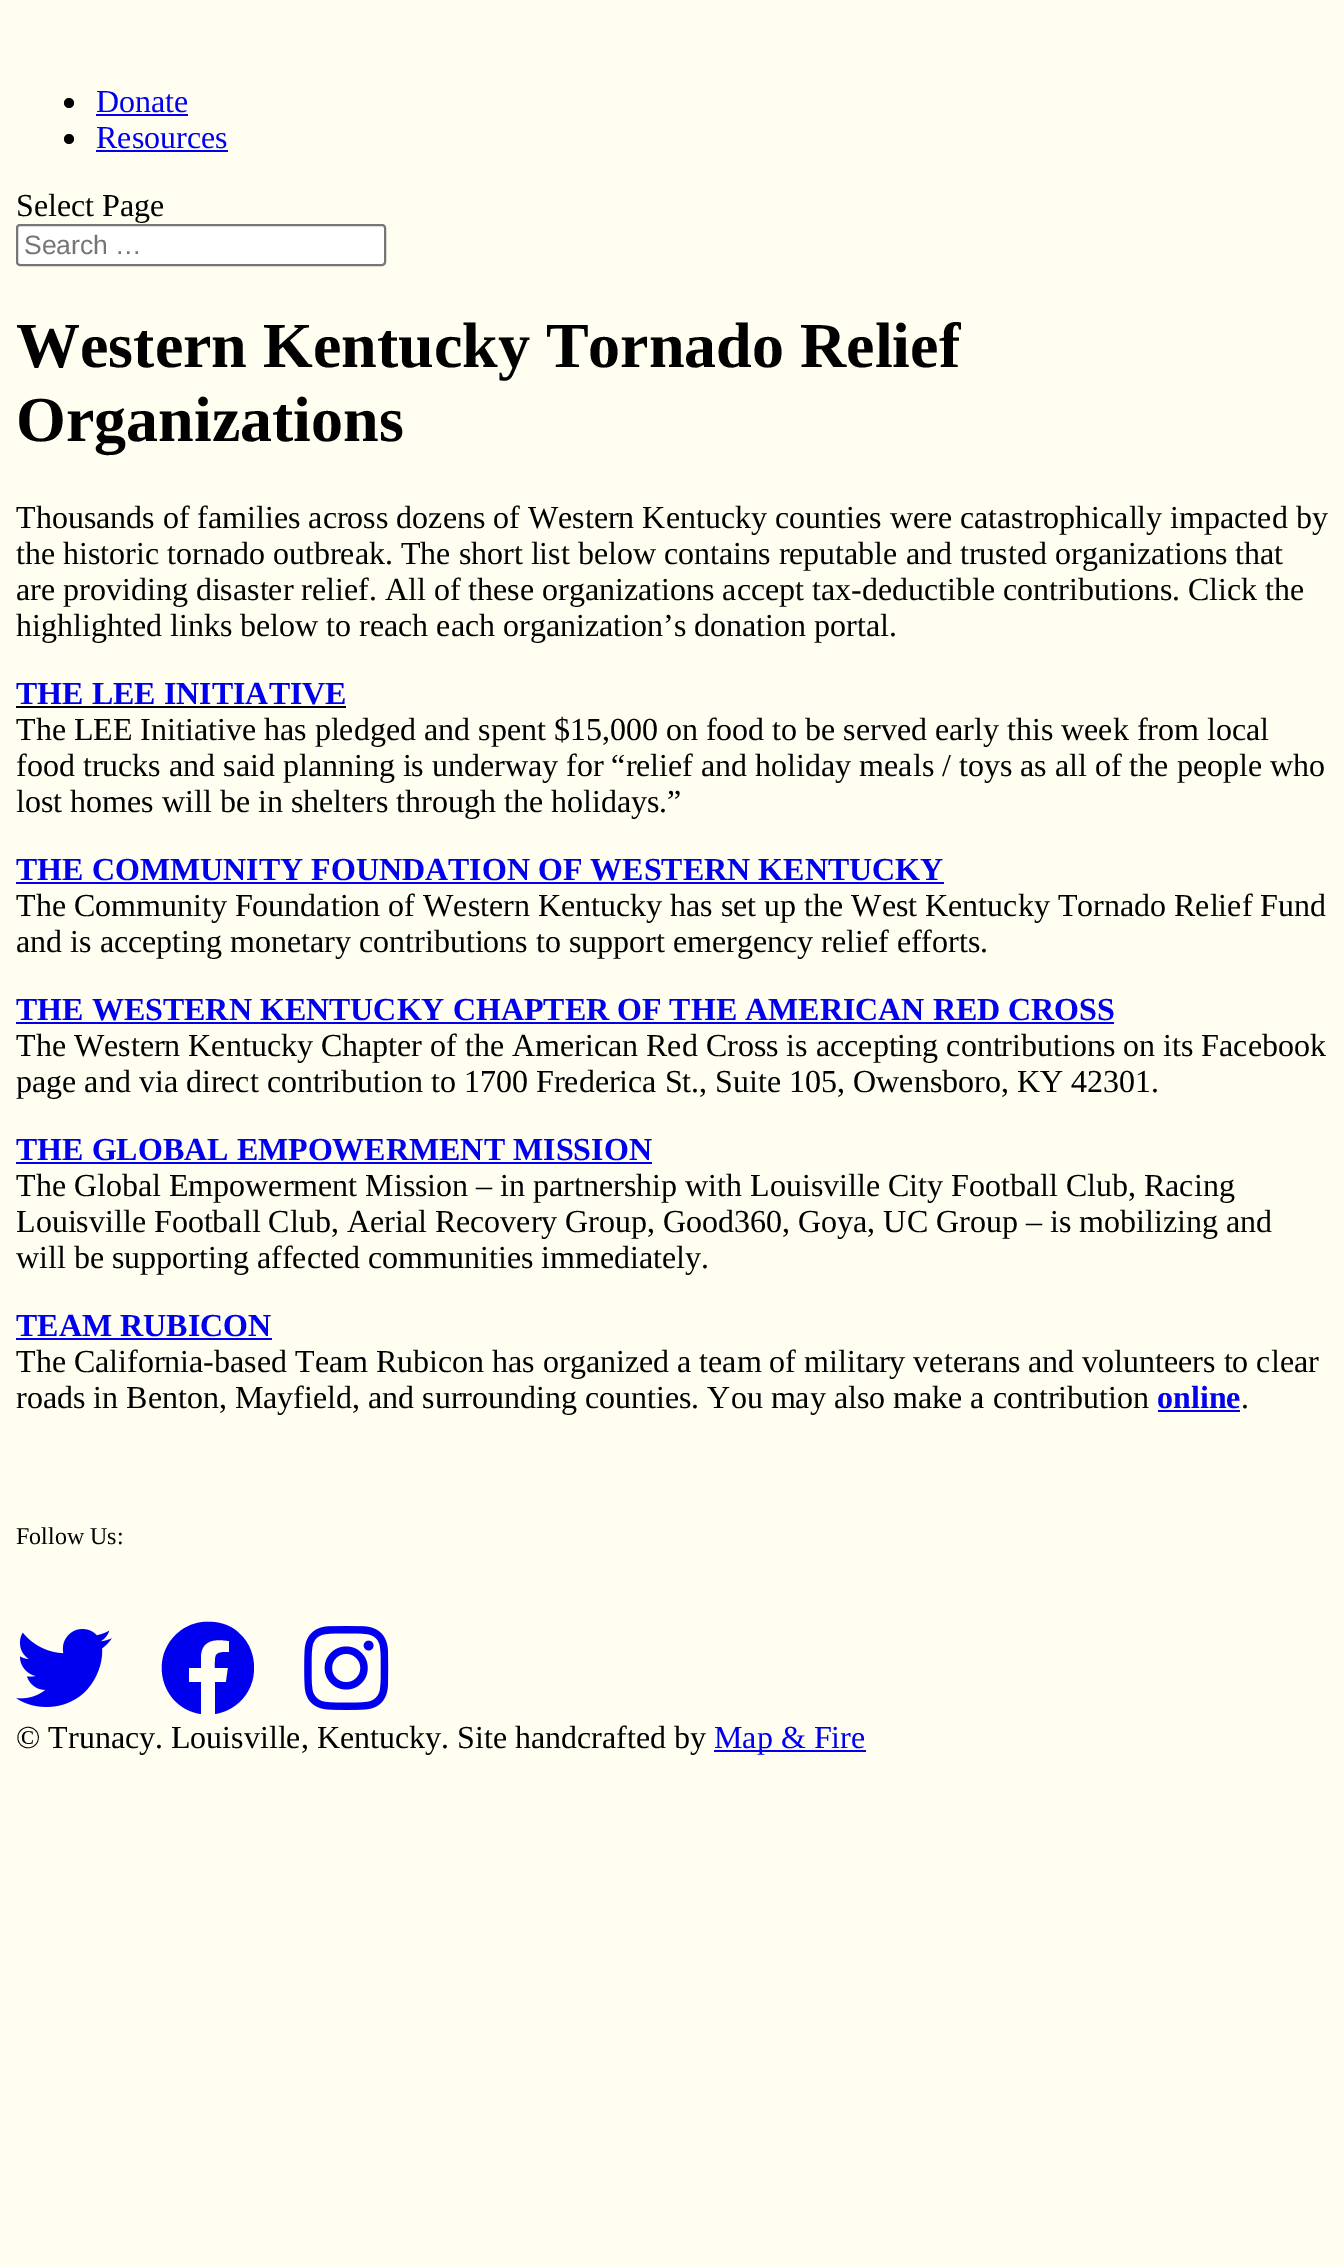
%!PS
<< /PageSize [1343 2265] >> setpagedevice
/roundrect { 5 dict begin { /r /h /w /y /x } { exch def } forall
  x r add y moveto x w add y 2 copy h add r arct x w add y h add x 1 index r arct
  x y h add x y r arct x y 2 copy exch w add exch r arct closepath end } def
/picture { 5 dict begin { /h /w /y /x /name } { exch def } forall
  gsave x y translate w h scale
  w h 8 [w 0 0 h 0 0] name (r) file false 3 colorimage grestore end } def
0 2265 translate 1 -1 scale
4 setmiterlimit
1 0.996 0.945 setrgbcolor
0 0 1343 2265 rectfill
0 setgray
newpath 69 103 5 0 360 arc closepath fill
/LiberationSerif-Regular [32 0 0 -32 0 0] selectfont
0 0 0.933 setrgbcolor
96 112 moveto (Donate) show
96 114 92 2 rectfill
0 setgray
newpath 69 139 5 0 360 arc closepath fill
0 0 0.933 setrgbcolor
96 148 moveto (Resources) show
96 150 132 2 rectfill
0 setgray
16 216 moveto (Select Page) show
1 setgray
17 225 368 40 3 roundrect gsave fill grestore
0.463 setgray
2 setlinewidth
stroke
/LiberationSans-Regular [26.5 0 0 -26.5 0 0] selectfont
0.459 setgray
24 254 moveto (Search …) show
/LiberationSerif-Bold [64 0 0 -64 0 0] selectfont
0 setgray
16 367 moveto (Western Kentucky Tornado Relief) show
16 441 moveto (Organizations) show
/LiberationSerif-Regular [32 0 0 -32 0 0] selectfont
16 528 moveto (Thousands of families across dozens of Western Kentucky counties were catastrophically impacted by) show
16 564 moveto (the historic tornado outbreak. The short list below contains reputable and trusted organizations that) show
16 600 moveto (are providing disaster relief. All of these organizations accept tax-deductible contributions. Click the) show
16 636 moveto (highlighted links below to reach each organization’s donation portal.) show
/LiberationSerif-Bold [32 0 0 -32 0 0] selectfont
0 0 0.933 setrgbcolor
16 704 moveto (THE LEE INITIATIVE) show
0 setgray
16 706 330 2 rectfill
/LiberationSerif-Regular [32 0 0 -32 0 0] selectfont
16 740 moveto (The LEE Initiative has pledged and spent $15,000 on food to be served early this week from local) show
16 776 moveto (food trucks and said planning is underway for “relief and holiday meals / toys as all of the people who) show
16 812 moveto (lost homes will be in shelters through the holidays.”) show
/LiberationSerif-Bold [32 0 0 -32 0 0] selectfont
0 0 0.933 setrgbcolor
16 880 moveto (THE COMMUNITY FOUNDATION OF WESTERN KENTUCKY) show
16 882 928 2 rectfill
/LiberationSerif-Regular [32 0 0 -32 0 0] selectfont
0 setgray
16 916 moveto (The Community Foundation of Western Kentucky has set up the West Kentucky Tornado Relief Fund) show
16 952 moveto (and is accepting monetary contributions to support emergency relief efforts.) show
/LiberationSerif-Bold [32 0 0 -32 0 0] selectfont
0 0 0.933 setrgbcolor
16 1020 moveto (THE WESTERN KENTUCKY CHAPTER OF THE AMERICAN RED CROSS) show
16 1022 1098 2 rectfill
/LiberationSerif-Regular [32 0 0 -32 0 0] selectfont
0 setgray
16 1056 moveto (The Western Kentucky Chapter of the American Red Cross is accepting contributions on its Facebook) show
16 1092 moveto (page and via direct contribution to 1700 Frederica St., Suite 105, Owensboro, KY 42301.) show
/LiberationSerif-Bold [32 0 0 -32 0 0] selectfont
0 0 0.933 setrgbcolor
16 1160 moveto (THE GLOBAL EMPOWERMENT MISSION) show
16 1162 636 2 rectfill
/LiberationSerif-Regular [32 0 0 -32 0 0] selectfont
0 setgray
16 1196 moveto (The Global Empowerment Mission – in partnership with Louisville City Football Club, Racing) show
16 1232 moveto (Louisville Football Club, Aerial Recovery Group, Good360, Goya, UC Group – is mobilizing and) show
16 1268 moveto (will be supporting affected communities immediately.) show
/LiberationSerif-Bold [32 0 0 -32 0 0] selectfont
0 0 0.933 setrgbcolor
16 1336 moveto (TEAM RUBICON) show
16 1338 256 2 rectfill
/LiberationSerif-Regular [32 0 0 -32 0 0] selectfont
0 setgray
16 1372 moveto (The California-based Team Rubicon has organized a team of military veterans and volunteers to clear) show
16 1408 moveto (roads in Benton, Mayfield, and surrounding counties. You may also make a contribution) show
/LiberationSerif-Bold [32 0 0 -32 0 0] selectfont
0 0 0.933 setrgbcolor
1157 1408 moveto (online) show
1158 1410 82 2 rectfill
/LiberationSerif-Regular [32 0 0 -32 0 0] selectfont
0 setgray
1241 1408 moveto (.) show
/LiberationSerif-Regular [24 0 0 -24 0 0] selectfont
16 1544 moveto (Follow Us:) show
(img1.rgb) 16 1629 96 78 picture
0 0 0.933 setrgbcolor
newpath 254 1668 moveto 254 1691 238 1710 215 1714 curveto 215 1682 lineto 226 1682 lineto 228 1668 lineto 215 1668 lineto 215 1654 214 1652 229 1652 curveto 229 1641 lineto 217 1639 203 1639 201 1654 curveto 201 1668 lineto 189 1668 lineto 189 1682 lineto 201 1682 lineto 201 1714 lineto 161 1708 148 1657 179 1632 curveto 186 1626 194 1623 203 1622 curveto 214 1621 225 1623 234 1629 curveto 247 1638 254 1652 254 1668 curveto closepath fill
(img2.rgb) 304 1626 85 84 picture
/LiberationSerif-Regular [32 0 0 -32 0 0] selectfont
0 setgray
16 1748 moveto (© Trunacy. Louisville, Kentucky. Site handcrafted by) show
0 0 0.933 setrgbcolor
714 1750 152 2 rectfill
714 1748 moveto (Map & Fire) show
showpage
